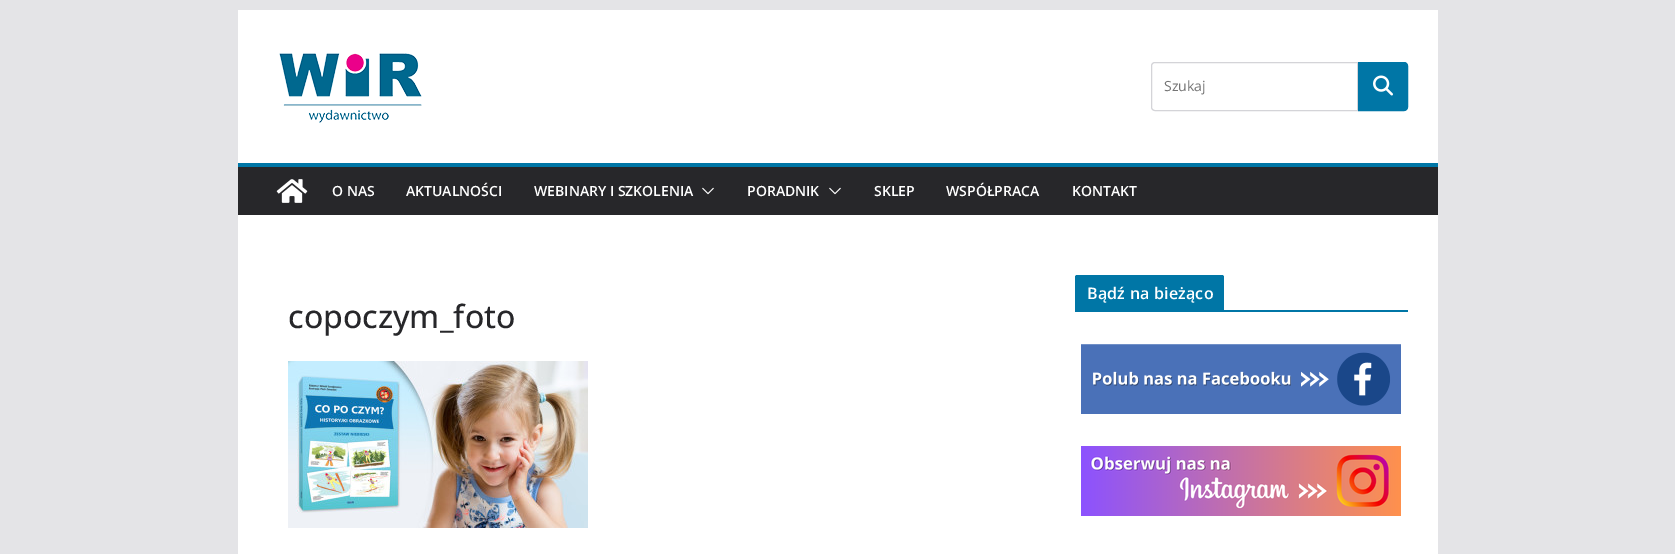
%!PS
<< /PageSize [1675 554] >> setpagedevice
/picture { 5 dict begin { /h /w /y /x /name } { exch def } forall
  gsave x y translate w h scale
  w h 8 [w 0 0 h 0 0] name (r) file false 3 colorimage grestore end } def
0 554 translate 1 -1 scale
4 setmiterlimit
0.894 0.894 0.906 setrgbcolor
0 0 1675 554 rectfill
1 setgray
238 10 1200 153 rectfill
(img1.rgb) 279 53 143 70 picture
0.831 0.831 0.847 setrgbcolor
newpath 1155 62.5 moveto 1357.5 62.5 lineto 1357.5 110.5 lineto 1155 110.5 lineto 1153 110.5 1151.5 109 1151.5 107 curveto 1151.5 66 lineto 1151.5 64 1153 62.5 1155 62.5 curveto closepath stroke
/OpenSans-Regular [14 0 0 -14 0 0] selectfont
0.459 setgray
1164 91 moveto (Szukaj) show
0 0.463 0.651 setrgbcolor
newpath 1358.5 62.5 moveto 1404 62.5 lineto 1406 62.5 1407.5 64 1407.5 66 curveto 1407.5 107 lineto 1407.5 109 1406 110.5 1404 110.5 curveto 1358.5 110.5 lineto closepath gsave fill grestore
stroke
(img2.rgb) 1373 75 20 21 picture
0.153 0.153 0.165 setrgbcolor
238 167 1200 48 rectfill
0 0.463 0.651 setrgbcolor
238 163 1200 4 rectfill
(img3.rgb) 276 179 32 24 picture
/OpenSans-SemiBold [14 0 0 -14 0 0] selectfont
1 setgray
332 196 moveto (O NAS) show
406 196 moveto (AKTUALNOŚCI) show
534 196 moveto (WEBINARY I SZKOLENIA) show
(img4.rgb) 702 187 12 8 picture
747 196 moveto (PORADNIK) show
(img4.rgb) 829 187 12 8 picture
874 196 moveto (SKLEP) show
946 196 moveto (WSPÓŁPRACA) show
1072 196 moveto (KONTAKT) show
238 215 1200 339 rectfill
0 0.463 0.651 setrgbcolor
1075 310 333 2 rectfill
newpath 1077 275 moveto 1222 275 lineto 1223 275 1224 276 1224 277 curveto 1224 310 lineto 1075 310 lineto 1075 277 lineto 1075 276 1076 275 1077 275 curveto closepath fill
/OpenSans-SemiBold [16 0 0 -16 0 0] selectfont
1 setgray
1087 299 moveto 0.2 0 (Bądź na bieżąco) ashow
(img5.rgb) 1081 344 320 70 picture
(img6.rgb) 1081 446 320 70 picture
/OpenSans-Medium [32 0 0 -32 0 0] selectfont
0.153 0.153 0.165 setrgbcolor
288 328 moveto (copoczym_foto) show
(img7.rgb) 288 361 300 167 picture
showpage
